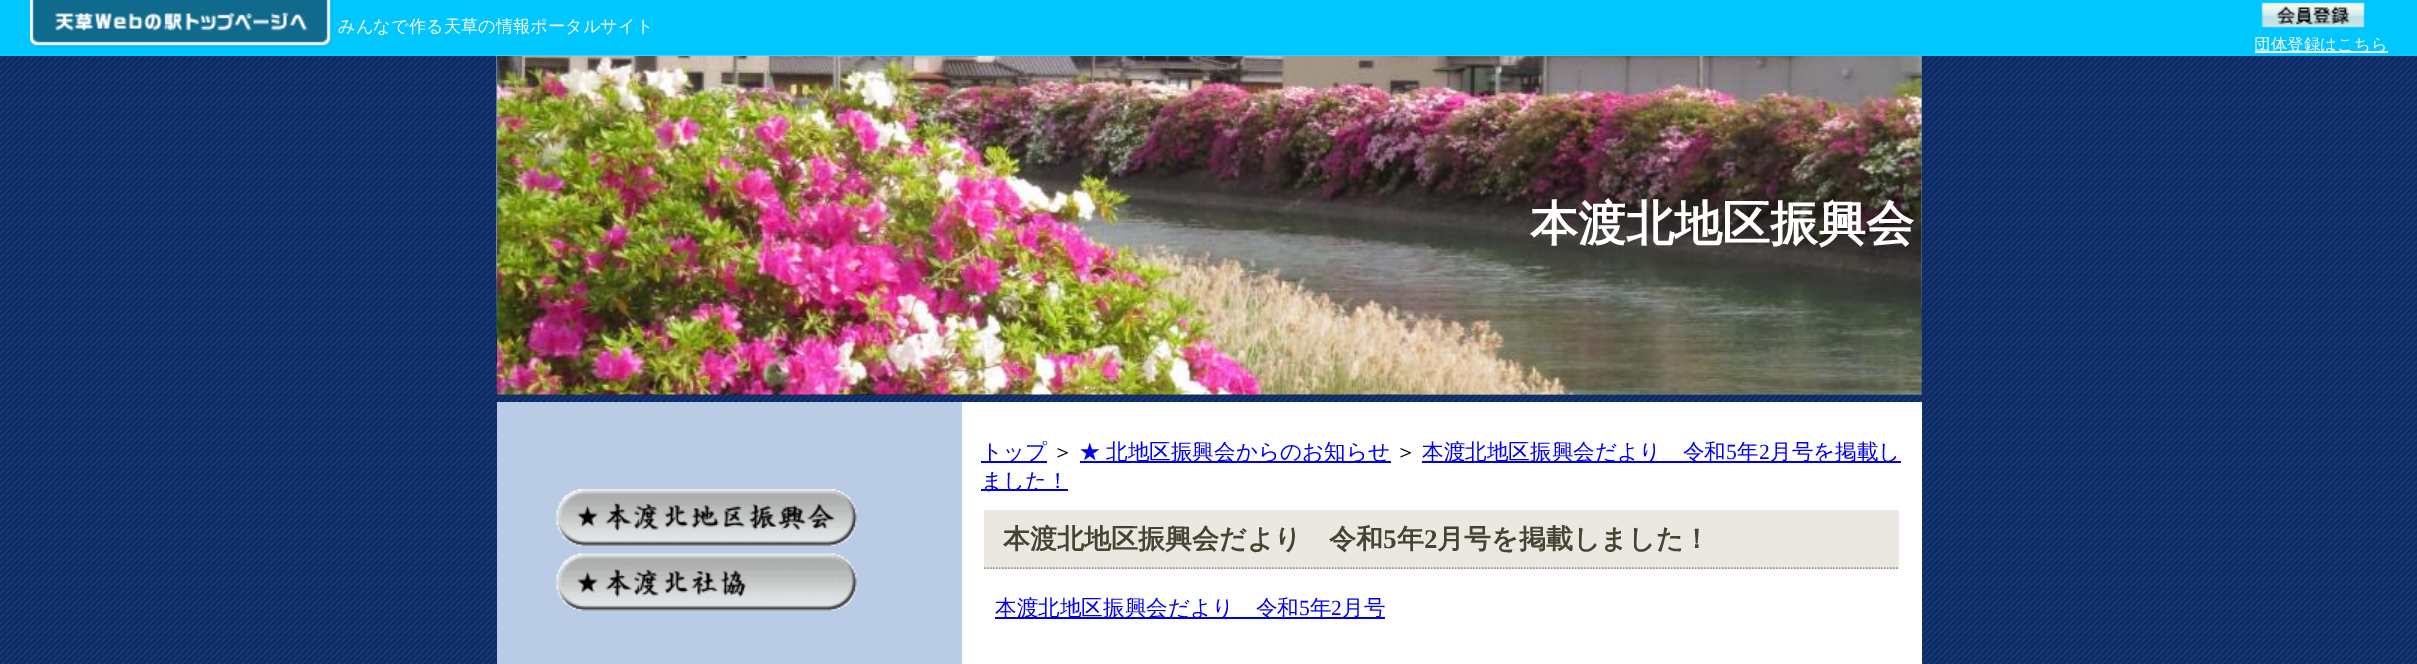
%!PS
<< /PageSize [2417 664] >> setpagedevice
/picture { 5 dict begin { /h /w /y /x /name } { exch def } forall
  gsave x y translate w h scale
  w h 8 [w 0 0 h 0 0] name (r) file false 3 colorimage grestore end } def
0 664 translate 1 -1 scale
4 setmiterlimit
1 setgray
0 0 2417 664 rectfill
(img1.rgb) 0 56 2417 608 picture
0 0.78 1 setrgbcolor
0 0 2417 56 rectfill
(img2.rgb) 30 0 303 48 picture
/WenQuanYiZenHei-Medium [17.25 0 0 -17.25 0 0] selectfont
1 setgray
338 32 moveto (みんなで作る天草の情報ポータルサイト) show
(img3.rgb) 2261 2 104 26 picture
2255 51 133 2 rectfill
/WenQuanYiZenHei-Medium [16.5 0 0 -16.5 0 0] selectfont
2254 50 moveto (団体登録はこちら) show
(img4.rgb) 496 55 1426 340 picture
(img5.rgb) 497 56 1425 339 picture
/WenQuanYiZenHei-Bold [48 0 0 -48 0 0] selectfont
1530 240 moveto (本渡北地区振興会) show
962 402 960 262 rectfill
0.729 0.8 0.898 setrgbcolor
497 402 465 262 rectfill
(img6.rgb) 556 489 301 57 picture
(img7.rgb) 556 553 301 58 picture
0 0 0.933 setrgbcolor
981 461 66 2 rectfill
/WenQuanYiZenHei-Medium [21.6 0 0 -21.6 0 0] selectfont
981 459 moveto (トップ) show
0 setgray
1052 459 moveto (＞) show
0 0 0.933 setrgbcolor
1080 461 311 2 rectfill
1079 459 moveto -1 0 32 (★ 北地区振興会からのお知らせ) widthshow
0 setgray
1395 459 moveto (＞) show
0 0 0.933 setrgbcolor
1422 461 479 2 rectfill
1422 459 moveto (本渡北地区振興会だより　令和) show
/LiberationSerif-Regular [21.6 0 0 -21.6 0 0] selectfont
1726 459 moveto (5) show
/WenQuanYiZenHei-Medium [21.6 0 0 -21.6 0 0] selectfont
1737 459 moveto (年) show
/LiberationSerif-Regular [21.6 0 0 -21.6 0 0] selectfont
1759 459 moveto (2) show
/WenQuanYiZenHei-Medium [21.6 0 0 -21.6 0 0] selectfont
1770 459 moveto (月号を掲載し) show
981 489 87 2 rectfill
981 488 moveto (ました！) show
0.918 0.91 0.882 setrgbcolor
984 510 915 59 rectfill
0.557 setgray
1.5 setlinewidth
[1.5 1.5] 0 setdash
newpath 984 568 moveto 1899 568 lineto stroke
/WenQuanYiZenHei-Bold [27 0 0 -27 0 0] selectfont
0.267 0.267 0.2 setrgbcolor
1003 548 moveto (本渡北地区振興会だより　令和) show
/LiberationSerif-Bold [27 0 0 -27 0 0] selectfont
1383 548 moveto (5) show
/WenQuanYiZenHei-Bold [27 0 0 -27 0 0] selectfont
1397 548 moveto (年) show
/LiberationSerif-Bold [27 0 0 -27 0 0] selectfont
1424 548 moveto (2) show
/WenQuanYiZenHei-Bold [27 0 0 -27 0 0] selectfont
1437 548 moveto (月号を掲載しました！) show
0 0 0.933 setrgbcolor
995 617 390 2 rectfill
/WenQuanYiZenHei-Medium [21.6 0 0 -21.6 0 0] selectfont
995 615 moveto (本渡北地区振興会だより　令和) show
/LiberationSerif-Regular [21.6 0 0 -21.6 0 0] selectfont
1299 615 moveto (5) show
/WenQuanYiZenHei-Medium [21.6 0 0 -21.6 0 0] selectfont
1310 615 moveto (年) show
/LiberationSerif-Regular [21.6 0 0 -21.6 0 0] selectfont
1331 615 moveto (2) show
/WenQuanYiZenHei-Medium [21.6 0 0 -21.6 0 0] selectfont
1342 615 moveto (月号) show
showpage
